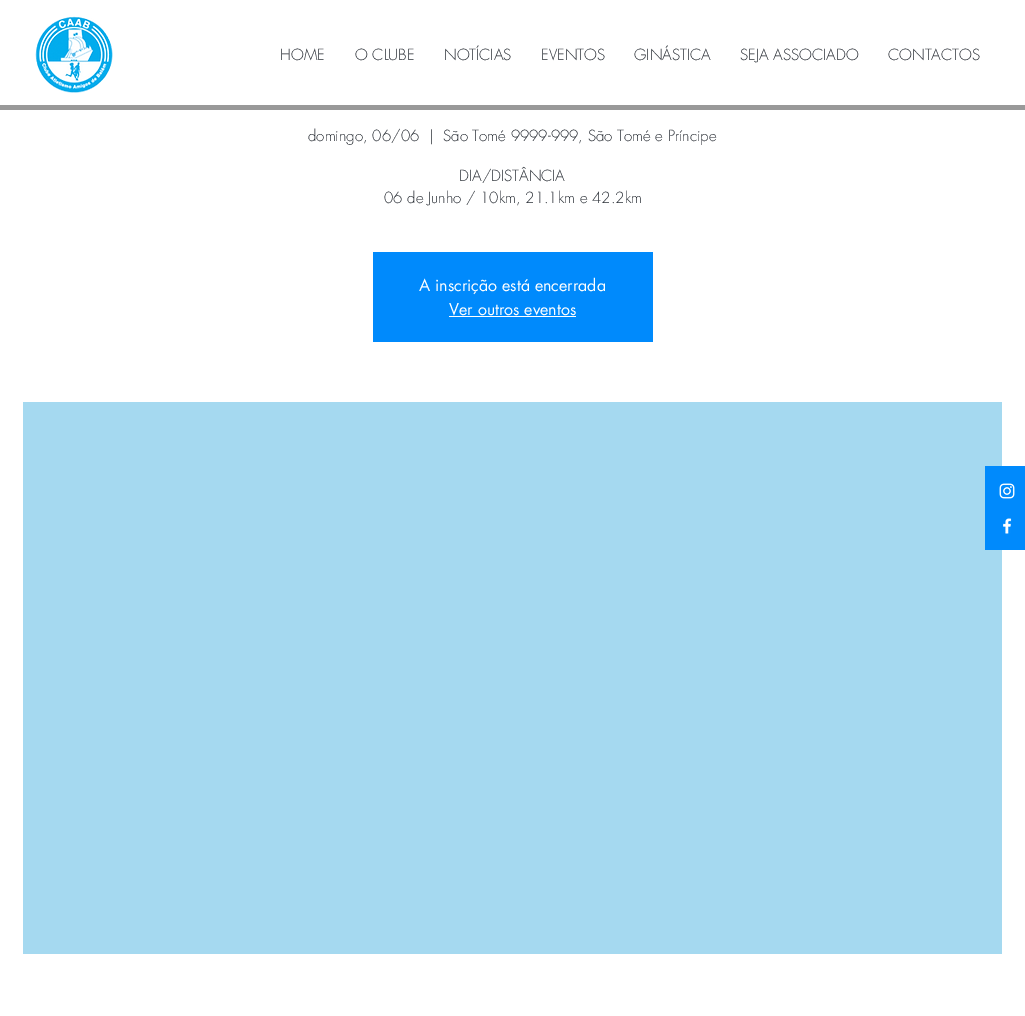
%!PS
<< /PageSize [1025 1016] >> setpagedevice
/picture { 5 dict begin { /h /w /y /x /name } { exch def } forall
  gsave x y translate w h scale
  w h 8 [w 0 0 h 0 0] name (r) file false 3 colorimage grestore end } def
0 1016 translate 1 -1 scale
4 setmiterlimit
1 setgray
0 0 1025 1016 rectfill
(img1.rgb) 35 16 78 77 picture
/futura-Light [15 0 0 -15 0 0] selectfont
0.165 0.184 0.212 setrgbcolor
280 60 moveto (HOME) show
355 60 moveto (O CLUBE) show
444 60 moveto (NOTÍCIAS) show
541 60 moveto (EVENTOS) show
634 60 moveto (GINÁSTICA) show
740 60 moveto (SEJA ASSOCIADO) show
888 60 moveto (CONTACTOS) show
0.6 setgray
0 105 1025 5 rectfill
0.165 0.184 0.212 setrgbcolor
308 141 moveto (domingo, 06/06) show
429 141 moveto (|) show
443 141 moveto (São Tomé 9999-999, São Tomé e Príncipe) show
459 181 moveto (DIA/DISTÂNCIA) show
384 203 moveto (06 de Junho / 10km, 21.1km e 42.2km) show
0 0.541 0.988 setrgbcolor
373 252 280 90 rectfill
/futura-Regular [16 0 0 -16 0 0] selectfont
1 setgray
419 291 moveto (A inscrição está encerrada) show
449 315 moveto (Ver outros eventos) show
449 316 127 1 rectfill
0.647 0.851 0.941 setrgbcolor
23 402 979 552 rectfill
0 0.541 0.988 setrgbcolor
985 466 40 84 rectfill
(img2.rgb) 999 483 16 16 picture
(img3.rgb) 1003 518 9 16 picture
showpage
